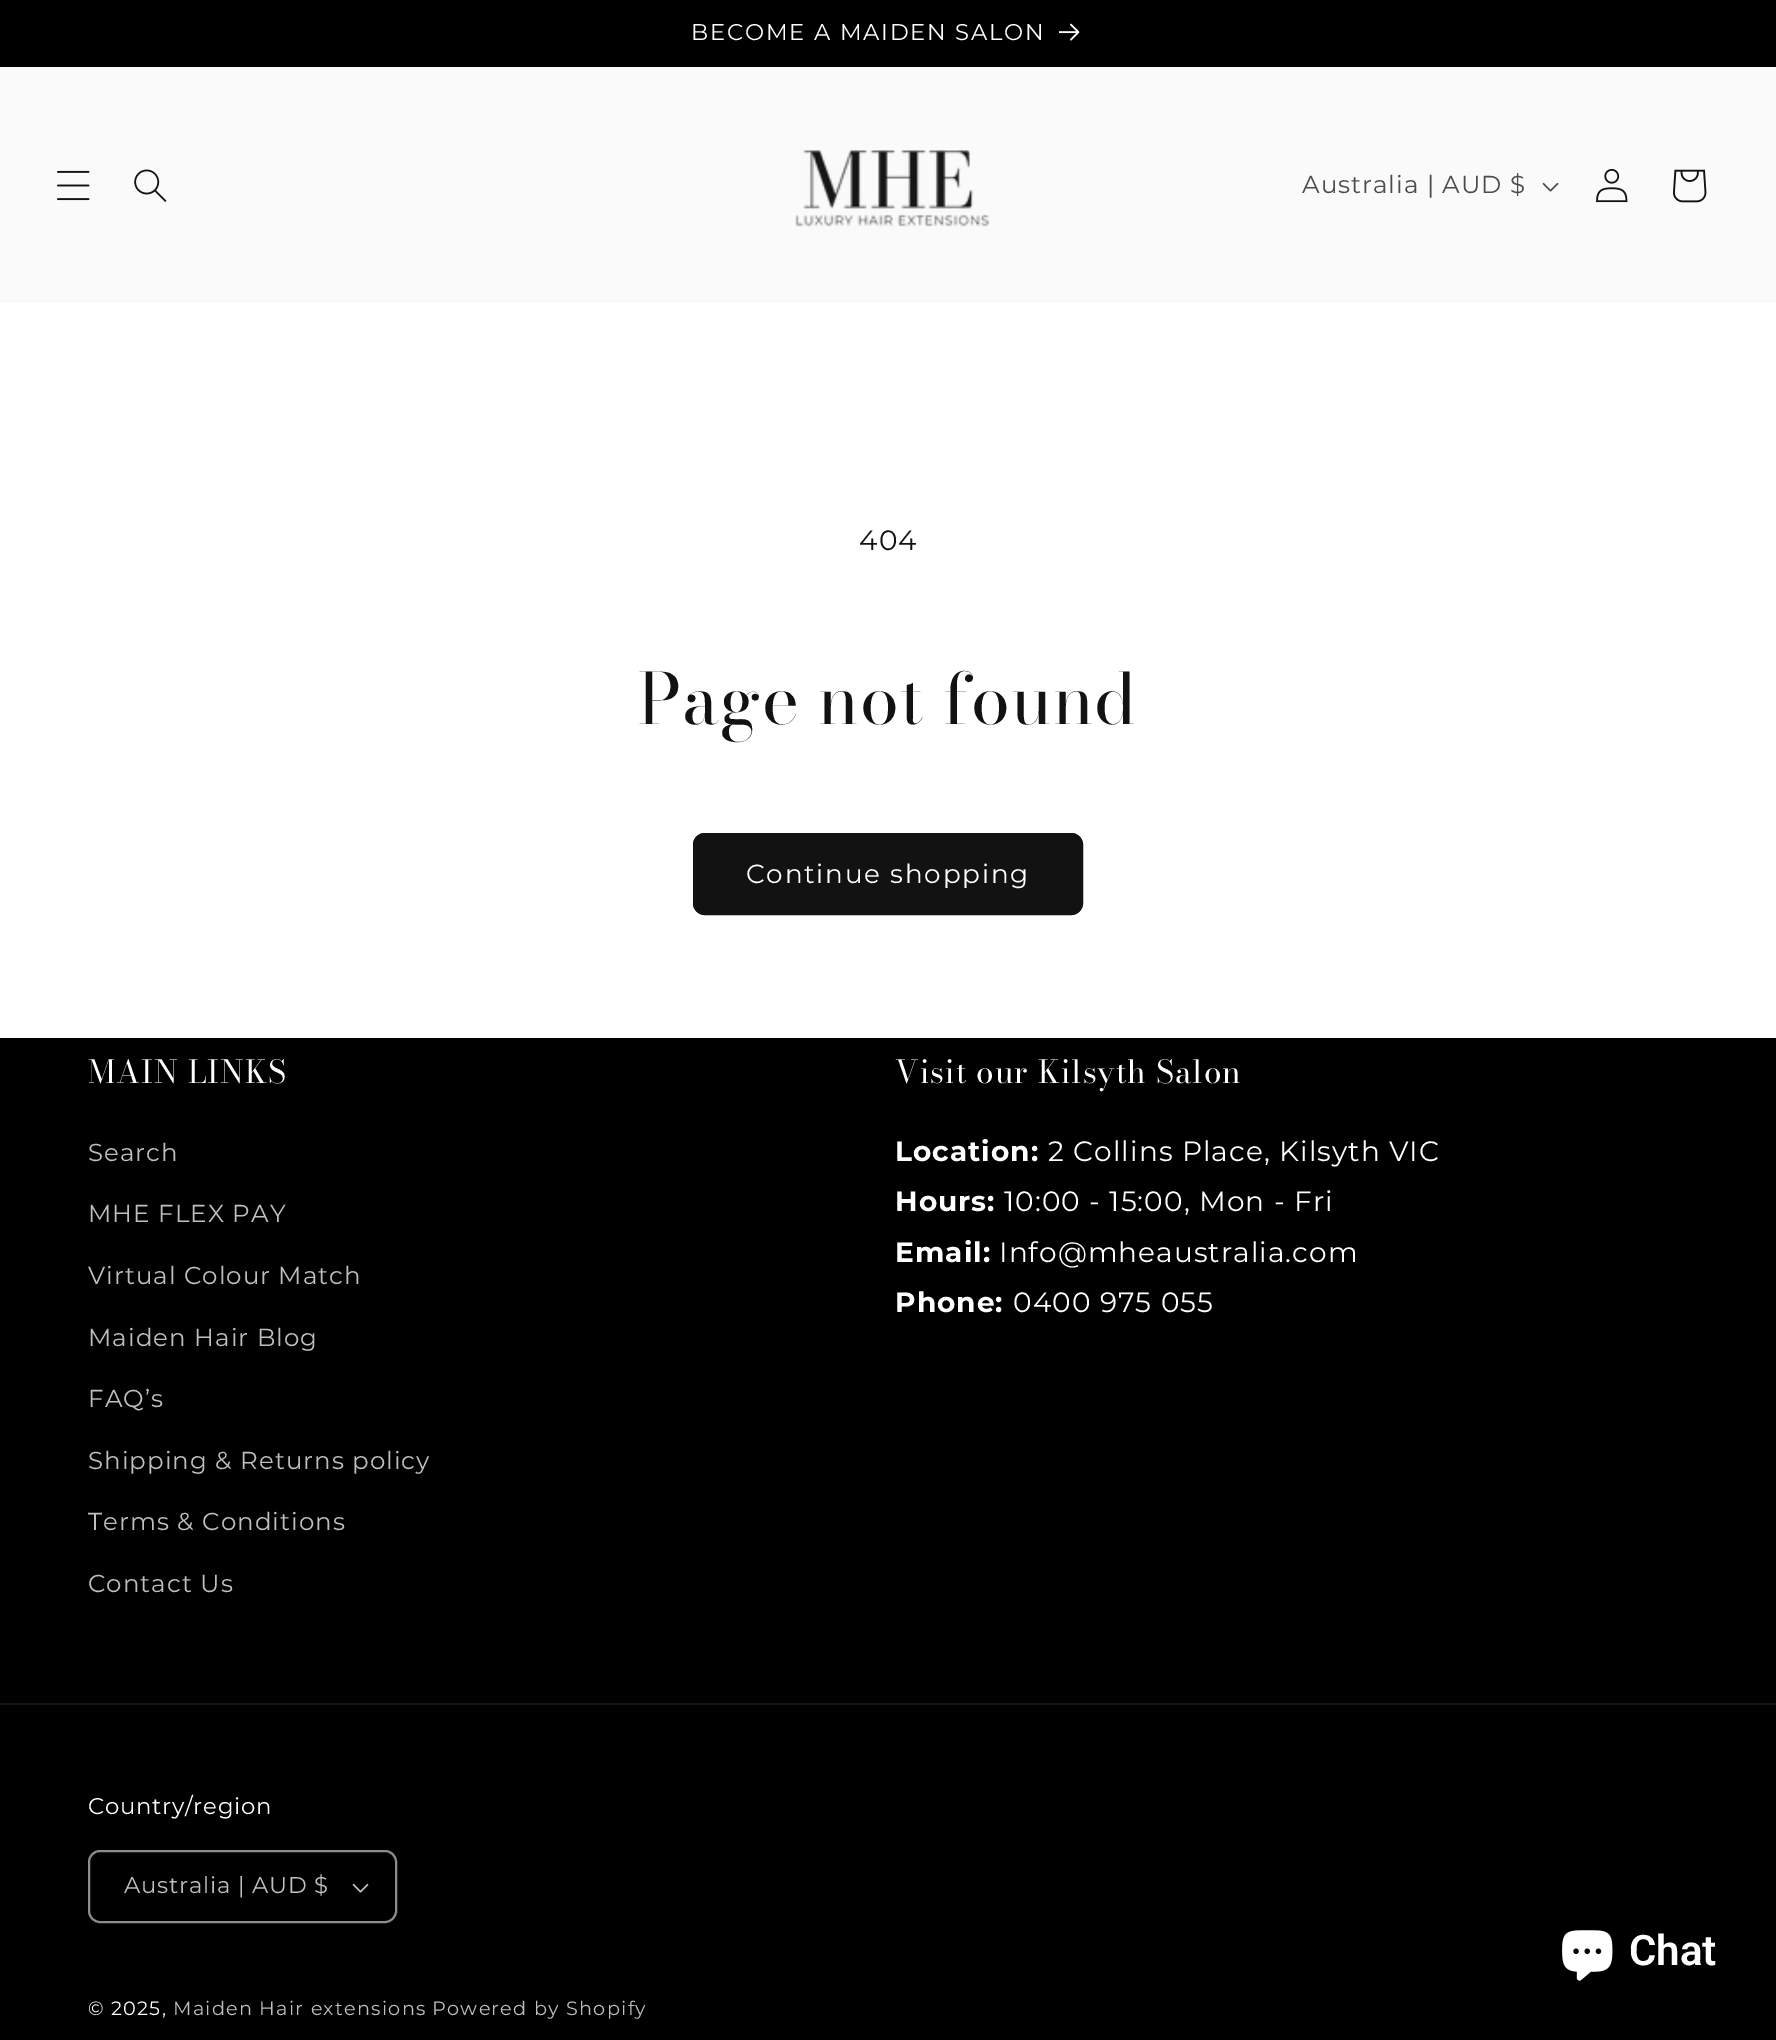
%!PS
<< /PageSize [1776 2040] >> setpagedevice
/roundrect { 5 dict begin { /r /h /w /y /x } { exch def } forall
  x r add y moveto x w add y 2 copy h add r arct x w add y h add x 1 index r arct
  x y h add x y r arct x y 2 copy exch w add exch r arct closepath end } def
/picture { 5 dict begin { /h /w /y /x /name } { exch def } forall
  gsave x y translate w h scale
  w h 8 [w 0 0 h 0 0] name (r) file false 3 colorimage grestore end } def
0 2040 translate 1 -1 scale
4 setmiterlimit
1 setgray
0 0 1776 2040 rectfill
0 setgray
0 0 1776 67 rectfill
/Montserrat-Regular [22.75 0 0 -22.75 0 0] selectfont
1 setgray
691 40 moveto 1.75 0 (BECOME A MAIDEN SALON) ashow
(img1.rgb) 1059 23 21 18 picture
0.98 setgray
0 67 1776 236 rectfill
(img2.rgb) 57 170 33 31 picture
(img3.rgb) 134 169 33 33 picture
(img4.rgb) 795 150 195 77 picture
/Montserrat-Regular [24.5 0 0 -24.5 0 0] selectfont
0.298 setgray
1302 193 moveto 1.05 0 (Australia | AUD $) ashow
(img5.rgb) 1542 182 17 10 picture
(img6.rgb) 1596 168 32 35 picture
(img7.rgb) 1673 169 34 34 picture
/Montserrat-Regular [28 0 0 -28 0 0] selectfont
0.071 setgray
859 550 moveto 1.05 0 (404) ashow
/BodoniModa-Regular [70 0 0 -70 0 0] selectfont
638 724 moveto 1.05 0 (Page not found) ashow
693 833 390 82 12 roundrect fill
2 setlinewidth
694 834 388 80 11 roundrect stroke
/Montserrat-Regular [26.25 0 0 -26.25 0 0] selectfont
1 setgray
746 883 moveto 1.75 0 (Continue shopping) ashow
0 setgray
0 1038 1776 1002 rectfill
/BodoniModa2-Regular [31.5 0 0 -31.5 0 0] selectfont
1 setgray
88 1083 moveto 1.05 0 (MAIN LINKS) ashow
/Montserrat-Regular [24.5 0 0 -24.5 0 0] selectfont
0.749 setgray
88 1161 moveto 1.05 0 (Search) ashow
88 1222 moveto 1.05 0 (MHE FLEX PAY) ashow
88 1284 moveto 1.05 0 (Virtual Colour Match) ashow
88 1346 moveto 1.05 0 (Maiden Hair Blog) ashow
88 1407 moveto 1.05 0 (FAQ’s) ashow
88 1469 moveto 1.05 0 (Shipping & Returns policy) ashow
88 1530 moveto 1.05 0 (Terms & Conditions) ashow
88 1592 moveto 1.05 0 (Contact Us) ashow
/BodoniModa2-Regular [31.5 0 0 -31.5 0 0] selectfont
1 setgray
895 1083 moveto 1.05 0 (Visit our Kilsyth Salon) ashow
/Montserrat-Bold [28 0 0 -28 0 0] selectfont
895 1161 moveto 1.05 0 (Location:) ashow
/Montserrat-Regular [28 0 0 -28 0 0] selectfont
1048 1161 moveto 1.05 0 (2 Collins Place, Kilsyth VIC) ashow
/Montserrat-Bold [28 0 0 -28 0 0] selectfont
895 1211 moveto 1.05 0 (Hours:) ashow
/Montserrat-Regular [28 0 0 -28 0 0] selectfont
1004 1211 moveto 1.05 0 (10:00 - 15:00, Mon - Fri) ashow
/Montserrat-Bold [28 0 0 -28 0 0] selectfont
895 1262 moveto 1.05 0 (Email:) ashow
/Montserrat-Regular [28 0 0 -28 0 0] selectfont
999 1262 moveto 1.05 0 (Info@mheaustralia.com) ashow
/Montserrat-Bold [28 0 0 -28 0 0] selectfont
895 1312 moveto 1.05 0 (Phone:) ashow
/Montserrat-Regular [28 0 0 -28 0 0] selectfont
1013 1312 moveto 1.05 0 (0400 975 055) ashow
0.078 setgray
0 1703 1776 2 rectfill
/Montserrat-Regular [22.75 0 0 -22.75 0 0] selectfont
1 setgray
88 1814 moveto 0.75 0 (Country/region) ashow
(img8.rgb) 352 1883 17 10 picture
0.549 setgray
89 1851 307 71 11 roundrect stroke
0.749 setgray
124 1893 moveto 0.75 0 (Australia | AUD $) ashow
/Montserrat-Regular [19.25 0 0 -19.25 0 0] selectfont
1 setgray
88 2015 moveto 1.25 0 (© 2025,) ashow
0.749 setgray
173 2015 moveto 1.25 0 (Maiden Hair extensions) ashow
432 2015 moveto 1.25 0 (Powered by Shopify) ashow
(img9.rgb) 1562 1930 51 51 picture
/Roboto-SemiBold [42 0 0 -42 0 0] selectfont
1 setgray
1629 1965 moveto (Chat) show
showpage
